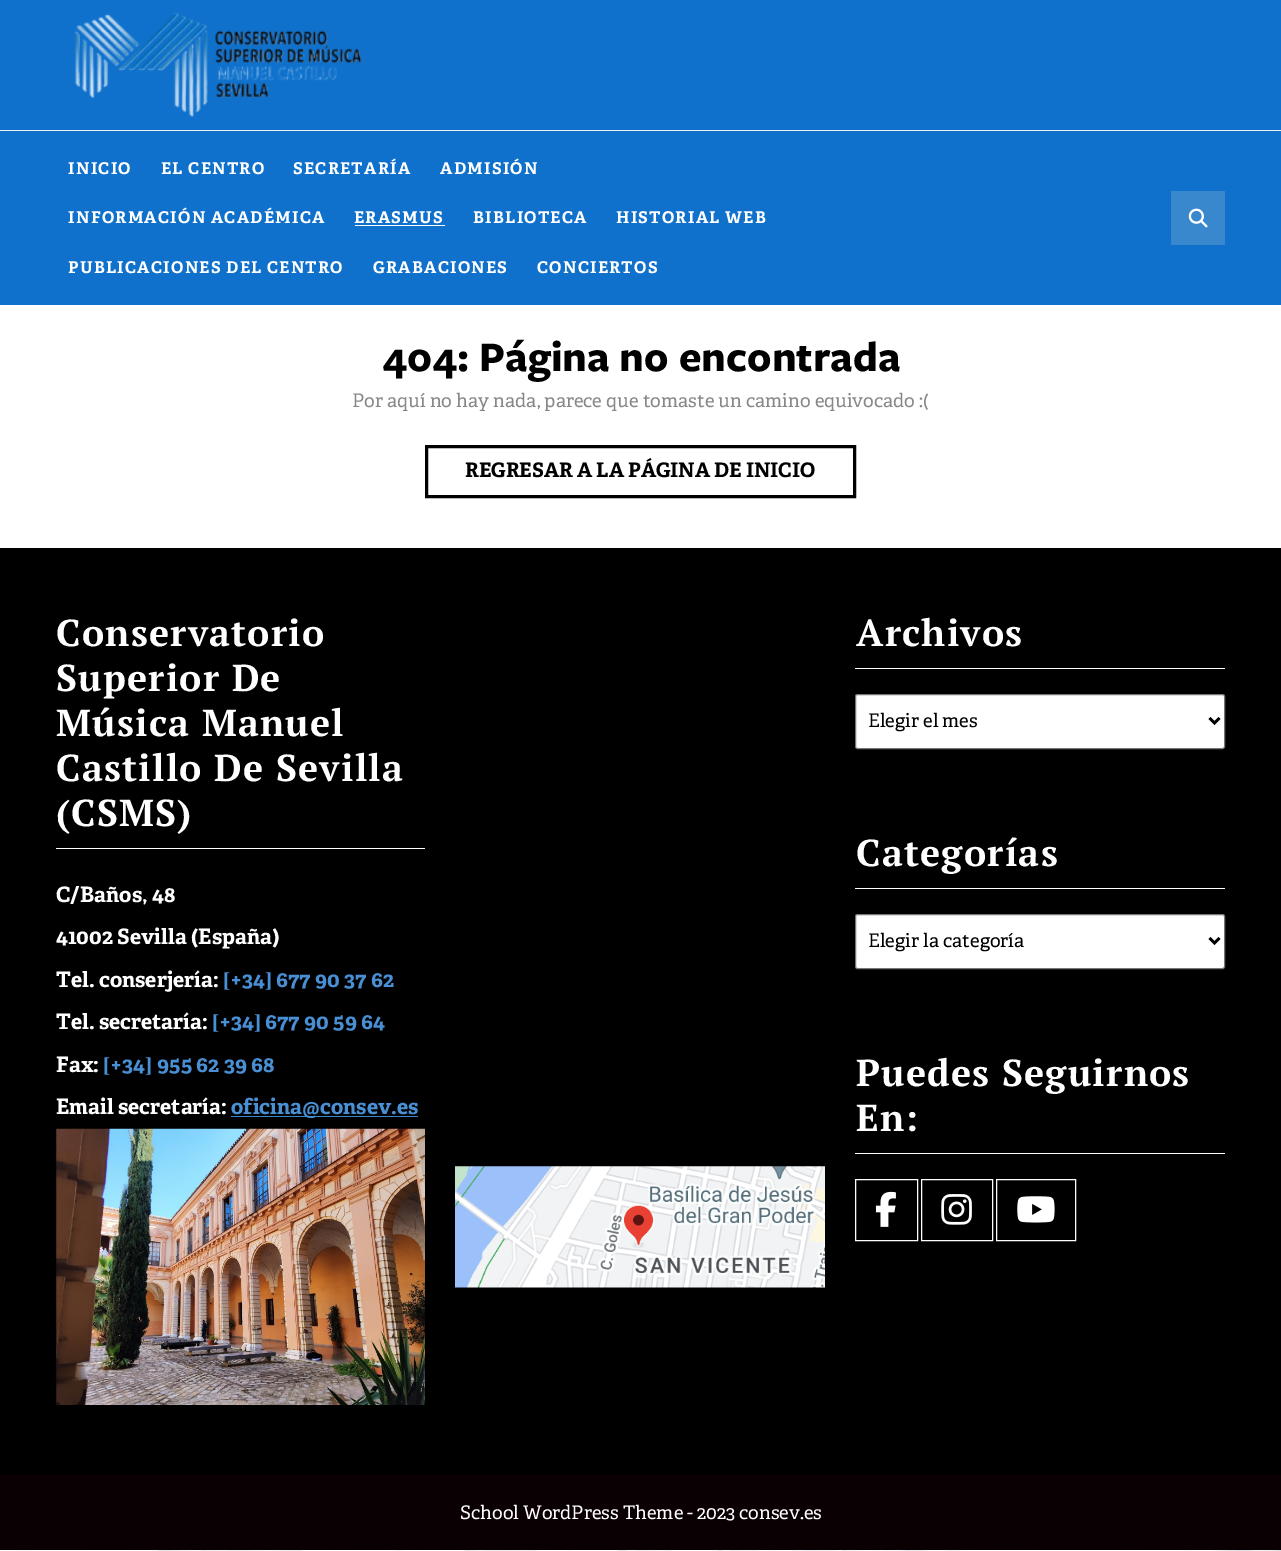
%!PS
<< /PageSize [1281 1551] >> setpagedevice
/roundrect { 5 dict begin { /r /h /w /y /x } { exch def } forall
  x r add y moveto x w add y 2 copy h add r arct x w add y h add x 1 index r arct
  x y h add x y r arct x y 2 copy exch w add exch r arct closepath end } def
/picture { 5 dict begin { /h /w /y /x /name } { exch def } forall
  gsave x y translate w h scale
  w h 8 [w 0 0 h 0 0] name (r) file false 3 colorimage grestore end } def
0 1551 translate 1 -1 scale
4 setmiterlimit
1 setgray
0 0 1281 1551 rectfill
(img1.rgb) 0 1550 1281 1 picture
0.063 0.443 0.8 setrgbcolor
0 0 1281 305 rectfill
0.933 setgray
0 130 1281 1 rectfill
(img2.rgb) 74 12 289 105 picture
/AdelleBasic-Bold [16.25 0 0 -16.25 0 0] selectfont
1 setgray
68 174 moveto 1.25 0 (INICIO) ashow
161 174 moveto 1.25 0 (EL CENTRO) ashow
293 174 moveto 1.25 0 (SECRETARÍA) ashow
440 174 moveto 1.25 0 (ADMISIÓN) ashow
68 223 moveto 1.25 0 (INFORMACIÓN ACADÉMICA) ashow
354 223 moveto 1.25 0 (ERASMUS) ashow
355 225 90 1 rectfill
473 223 moveto 1.25 0 (BIBLIOTECA) ashow
616 223 moveto 1.25 0 (HISTORIAL WEB) ashow
68 273 moveto 1.25 0 (PUBLICACIONES DEL CENTRO) ashow
373 273 moveto 1.25 0 (GRABACIONES) ashow
537 273 moveto 1.25 0 (CONCIERTOS) ashow
0.224 0.529 0.8 setrgbcolor
1171 191 54 54 1 roundrect fill
(img3.rgb) 1188 208 20 20 picture
/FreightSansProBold-Bold [43.75 0 0 -43.75 0 0] selectfont
0 setgray
382 371 moveto (404: Página no encontrada) show
/AdelleBasic-Regular [18.75 0 0 -18.75 0 0] selectfont
0.533 setgray
352 407 moveto (Por aquí no hay nada, parece que tomaste un camino equivocado :\() show
0 setgray
3 setlinewidth
426.5 446.5 428 50 rectstroke
/AdelleBasic-Bold [20 0 0 -20 0 0] selectfont
465 477 moveto (REGRESAR A LA PÁGINA DE INICIO) show
0 548 1281 927 rectfill
1 setgray
56 848 369 1 rectfill
/PTSerif-Bold [37.5 0 0 -37.5 0 0] selectfont
56 646 moveto 1.25 0 (Conservatorio) ashow
56 691 moveto 1.25 0 (Superior De) ashow
56 736 moveto 1.25 0 (Música Manuel) ashow
56 781 moveto 1.25 0 (Castillo De Sevilla) ashow
56 826 moveto 1.25 0 (\(CSMS\)) ashow
/AdelleBasic-Bold [21.25 0 0 -21.25 0 0] selectfont
56 902 moveto (C/Baños, 48) show
56 944 moveto (41002 Sevilla \(España\)) show
56 987 moveto (Tel. conserjería:) show
/LiberationSerif-Bold [21.25 0 0 -21.25 0 0] selectfont
0.286 0.561 0.831 setrgbcolor
223 987 moveto ([) show
/AdelleBasic-Bold [21.25 0 0 -21.25 0 0] selectfont
230 987 moveto (+34) show
/LiberationSerif-Bold [21.25 0 0 -21.25 0 0] selectfont
265 987 moveto (]) show
/AdelleBasic-Bold [21.25 0 0 -21.25 0 0] selectfont
276 987 moveto (677 90 37 62) show
1 setgray
56 1029 moveto (Tel. secretaría:) show
/LiberationSerif-Bold [21.25 0 0 -21.25 0 0] selectfont
0.286 0.561 0.831 setrgbcolor
212 1029 moveto ([) show
/AdelleBasic-Bold [21.25 0 0 -21.25 0 0] selectfont
219 1029 moveto (+34) show
/LiberationSerif-Bold [21.25 0 0 -21.25 0 0] selectfont
254 1029 moveto (]) show
/AdelleBasic-Bold [21.25 0 0 -21.25 0 0] selectfont
265 1029 moveto (677 90 59 64) show
1 setgray
56 1072 moveto (Fax:) show
/LiberationSerif-Bold [21.25 0 0 -21.25 0 0] selectfont
0.286 0.561 0.831 setrgbcolor
103 1072 moveto ([) show
/AdelleBasic-Bold [21.25 0 0 -21.25 0 0] selectfont
110 1072 moveto (+34) show
/LiberationSerif-Bold [21.25 0 0 -21.25 0 0] selectfont
145 1072 moveto (]) show
/AdelleBasic-Bold [21.25 0 0 -21.25 0 0] selectfont
157 1072 moveto (955 62 39 68) show
1 setgray
56 1114 moveto (Email secretaría:) show
0.224 0.529 0.8 setrgbcolor
231 1116 187 1 rectfill
0.286 0.561 0.831 setrgbcolor
231 1114 moveto (oficina@consev.es) show
(img4.rgb) 56 1128 369 277 picture
1 setgray
855 668 370 1 rectfill
/PTSerif-Bold [37.5 0 0 -37.5 0 0] selectfont
856 646 moveto 1.25 0 (Archivos) ashow
855.5 694.5 369 54 2 roundrect gsave fill grestore
0.463 setgray
1 setlinewidth
stroke
0 setgray
2.5 setlinewidth
newpath 1209.5 718 moveto 1214.5 723 lineto 1219.5 718 lineto stroke
/AdelleBasic-Regular [18.75 0 0 -18.75 0 0] selectfont
868 727 moveto (Elegir el mes) show
1 setgray
855 888 370 1 rectfill
/PTSerif-Bold [37.5 0 0 -37.5 0 0] selectfont
856 866 moveto 1.25 0 (Categorías) ashow
855.5 914.5 369 54 2 roundrect gsave fill grestore
0.463 setgray
1 setlinewidth
stroke
0 setgray
2.5 setlinewidth
newpath 1209.5 938 moveto 1214.5 943 lineto 1219.5 938 lineto stroke
/AdelleBasic-Regular [18.75 0 0 -18.75 0 0] selectfont
868 947 moveto (Elegir la categoría) show
1 setgray
855 1153 370 1 rectfill
/PTSerif-Bold [37.5 0 0 -37.5 0 0] selectfont
856 1086 moveto 1.25 0 (Puedes Seguirnos) ashow
856 1131 moveto 1.25 0 (En:) ashow
1 setlinewidth
855.5 1179.5 62 61 rectstroke
(img5.rgb) 875 1191 21 36 picture
921.5 1179.5 71 61 rectstroke
(img6.rgb) 941 1194 31 31 picture
996.5 1179.5 79 61 rectstroke
(img7.rgb) 1017 1196 38 27 picture
(img8.rgb) 455 1166 370 122 picture
0.039 0 0.016 setrgbcolor
0 1475 1281 75 rectfill
/AdelleBasic-Regular [18.75 0 0 -18.75 0 0] selectfont
1 setgray
460 1519 moveto (School WordPress Theme - 2023 consev.es) show
showpage
